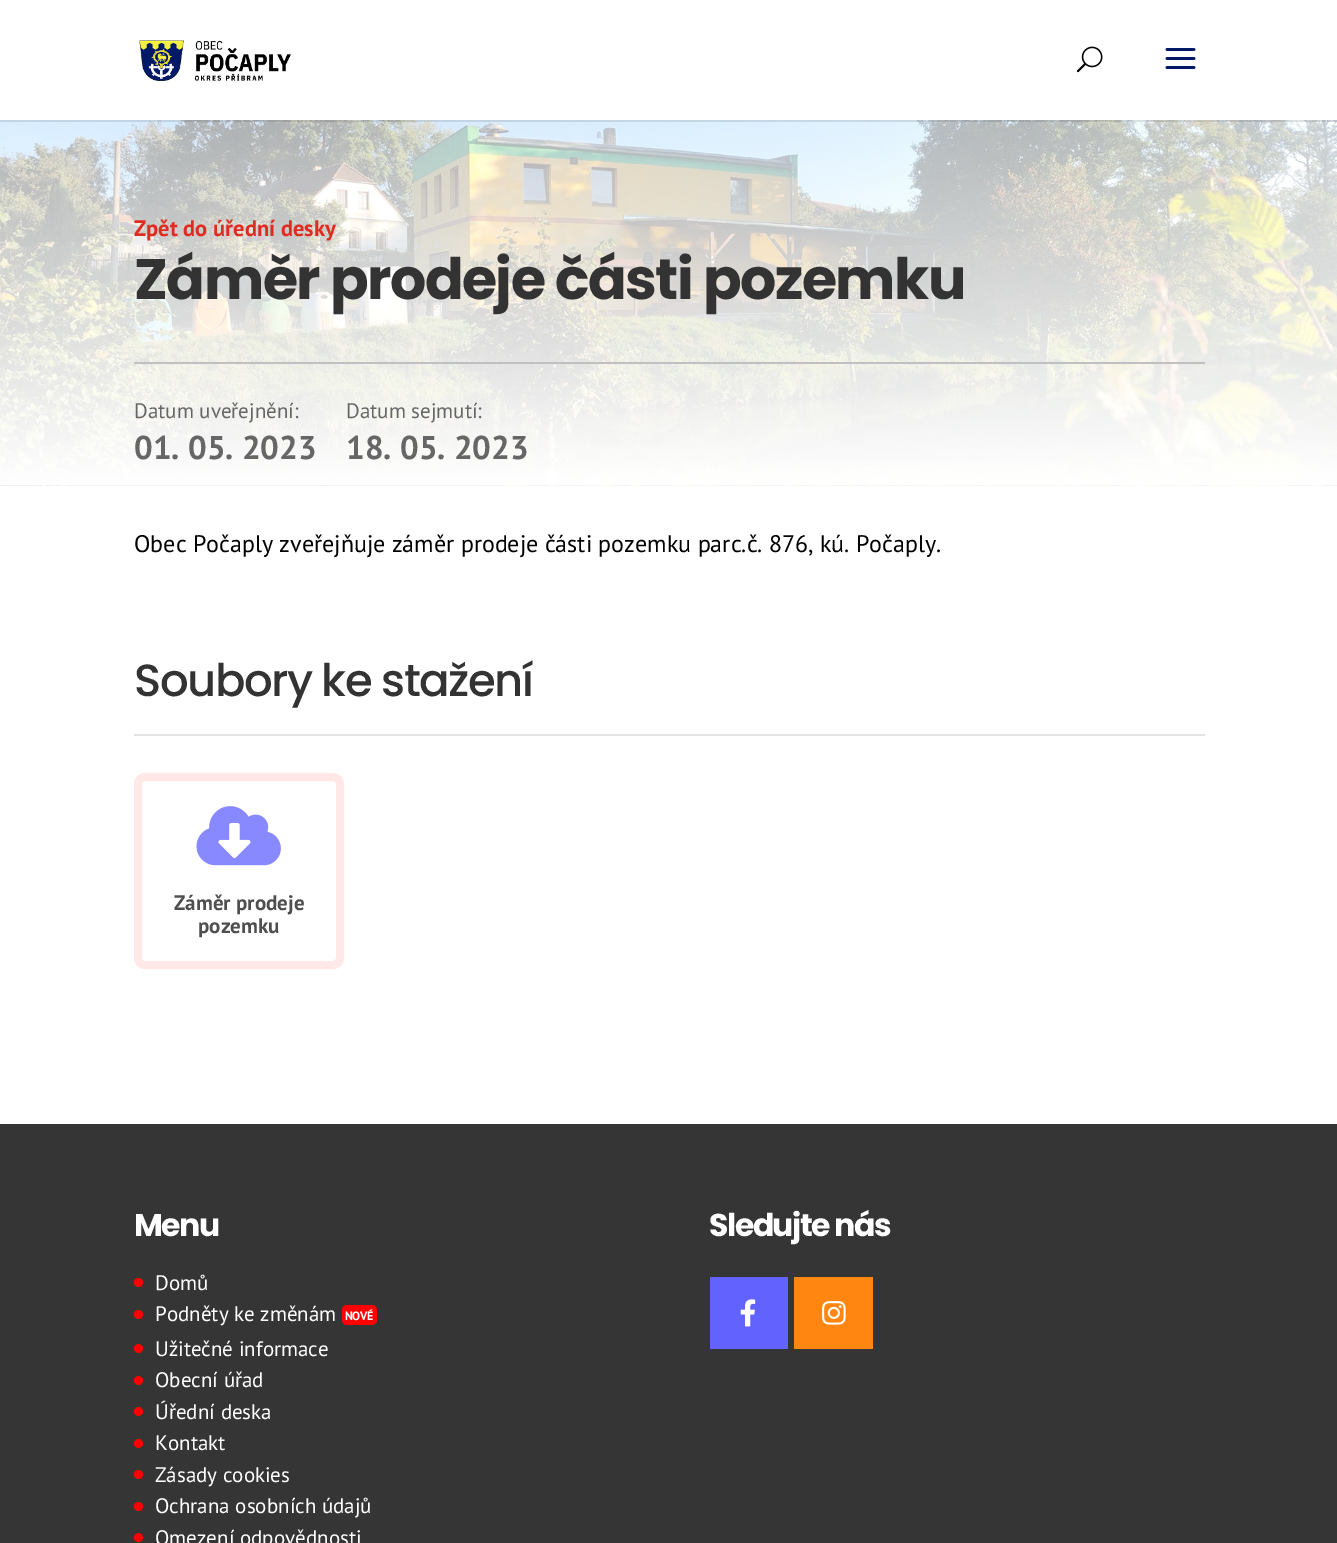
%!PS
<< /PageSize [1337 1543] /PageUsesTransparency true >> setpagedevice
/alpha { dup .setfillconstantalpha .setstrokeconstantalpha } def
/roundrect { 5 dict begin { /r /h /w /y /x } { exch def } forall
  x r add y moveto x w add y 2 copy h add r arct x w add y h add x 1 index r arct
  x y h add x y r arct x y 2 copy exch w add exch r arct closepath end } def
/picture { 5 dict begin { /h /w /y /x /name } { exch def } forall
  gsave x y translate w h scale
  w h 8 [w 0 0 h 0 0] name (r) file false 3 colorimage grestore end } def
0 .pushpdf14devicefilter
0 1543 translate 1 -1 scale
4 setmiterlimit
1 setgray
0 0 1337 1543 rectfill
(img4.rgb) 0 120 1337 366 picture
0.1 alpha
0 setgray
0 120 1337 2 rectfill
1 alpha
(img1.rgb) 139 40 152 41 picture
(img2.rgb) 1076 46 27 27 picture
(img3.rgb) 1165 48 31 21 picture
/PTSans-Bold [22.5 0 0 -22.5 0 0] selectfont
0.878 0.169 0.125 setrgbcolor
134 236 moveto (Zpět do úřední desky) show
/Poppins-Bold [57 0 0 -57 0 0] selectfont
0.2 setgray
134 299 moveto -1.5 0 (Záměr prodeje části pozemku) ashow
0.753 setgray
134 362 1071 2 rectfill
/PTSans-Regular [21 0 0 -21 0 0] selectfont
0.4 setgray
134 418 moveto (Datum uveřejnění:) show
/PTSans-Bold [33 0 0 -33 0 0] selectfont
134 459 moveto (01. 05. 2023) show
/PTSans-Regular [21 0 0 -21 0 0] selectfont
346 418 moveto (Datum sejmutí:) show
/PTSans-Bold [33 0 0 -33 0 0] selectfont
346 459 moveto (18. 05. 2023) show
/PTSans-Regular [24 0 0 -24 0 0] selectfont
0 setgray
134 552 moveto (Obec Počaply zveřejňuje záměr prodeje části pozemku parc.č. 876, kú. Počaply.) show
0.894 setgray
134 734 1071 2 rectfill
/Poppins-Medium [45 0 0 -45 0 0] selectfont
0.2 setgray
134 696 moveto -1.5 0 (Soubory ke stažení) ashow
1 0.91 0.906 setrgbcolor
8 setlinewidth
138 777 202 188 7 roundrect stroke
(img5.rgb) 196 806 85 60 picture
/PTSans-Bold [21 0 0 -21 0 0] selectfont
0.31 setgray
174 910 moveto (Záměr prodeje) show
198 933 moveto (pozemku) show
0.208 setgray
0 1124 1337 419 rectfill
/Poppins-Bold [31.5 0 0 -31.5 0 0] selectfont
1 setgray
134 1236 moveto -1.5 0 (Menu) ashow
1 0 0 setrgbcolor
newpath 138.5 1282.5 4.5 0 360 arc closepath fill
/PTSans-Regular [21 0 0 -21 0 0] selectfont
1 setgray
155 1290 moveto (Domů) show
1 0 0 setrgbcolor
newpath 138.5 1314.5 4.5 0 360 arc closepath fill
1 setgray
155 1321 moveto (Podněty ke změnám) show
1 0 0 setrgbcolor
342 1305 35 20 5 roundrect fill
/PTSans-Bold [12 0 0 -12 0 0] selectfont
1 setgray
345 1320 moveto -0.5 0 (NOVÉ) ashow
1 0 0 setrgbcolor
newpath 138.5 1348.5 4.5 0 360 arc closepath fill
/PTSans-Regular [21 0 0 -21 0 0] selectfont
1 setgray
155 1356 moveto (Užitečné informace) show
1 0 0 setrgbcolor
newpath 138.5 1380.5 4.5 0 360 arc closepath fill
1 setgray
155 1387 moveto (Obecní úřad) show
1 0 0 setrgbcolor
newpath 138.5 1411.5 4.5 0 360 arc closepath fill
1 setgray
155 1419 moveto (Úřední deska) show
1 0 0 setrgbcolor
newpath 138.5 1443.5 4.5 0 360 arc closepath fill
1 setgray
155 1450 moveto (Kontakt) show
1 0 0 setrgbcolor
newpath 138.5 1474.5 4.5 0 360 arc closepath fill
1 setgray
155 1482 moveto (Zásady cookies) show
1 0 0 setrgbcolor
newpath 138.5 1506.5 4.5 0 360 arc closepath fill
1 setgray
155 1513 moveto (Ochrana osobních údajů) show
1 0 0 setrgbcolor
newpath 138.5 1537.5 4.5 0 360 arc closepath fill
1 setgray
155 1545 moveto (Omezení odpovědnosti) show
/Poppins-Bold [31.5 0 0 -31.5 0 0] selectfont
709 1236 moveto -1.5 0 (Sledujte nás) ashow
0.384 0.384 1 setrgbcolor
710 1277 78 72 rectfill
(img6.rgb) 740 1299 16 28 picture
1 0.529 0.067 setrgbcolor
794 1277 79 72 rectfill
(img7.rgb) 822 1301 24 24 picture
.poppdf14devicefilter showpage
